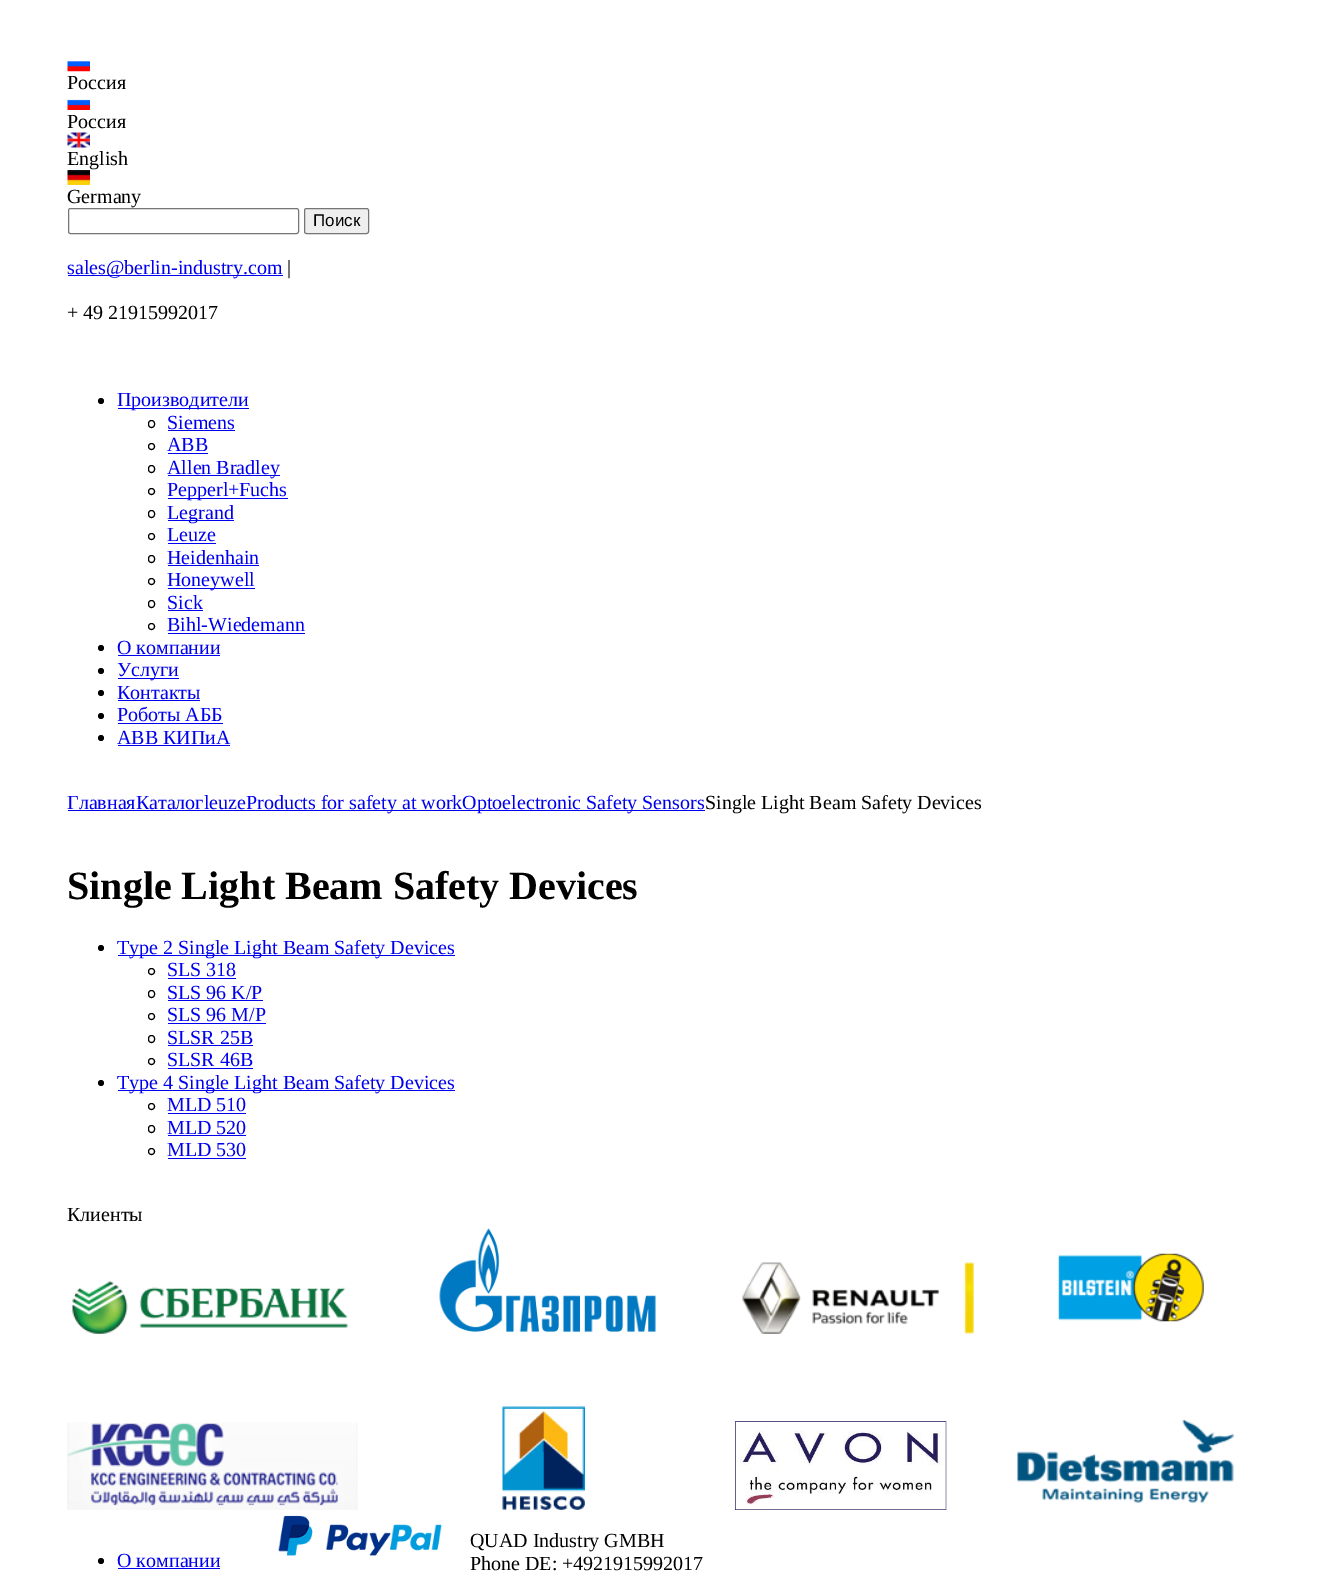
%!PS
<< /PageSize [1320 1580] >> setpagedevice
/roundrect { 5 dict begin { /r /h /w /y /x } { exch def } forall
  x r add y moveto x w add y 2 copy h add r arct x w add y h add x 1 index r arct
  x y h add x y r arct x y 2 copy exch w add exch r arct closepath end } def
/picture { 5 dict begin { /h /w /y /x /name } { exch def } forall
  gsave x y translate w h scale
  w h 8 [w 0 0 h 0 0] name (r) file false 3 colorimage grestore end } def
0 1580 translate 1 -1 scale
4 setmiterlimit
1 setgray
0 0 1320 1580 rectfill
(img1.rgb) 67 61 23 11 picture
/LiberationSerif-Regular [20 0 0 -20 0 0] selectfont
0 setgray
67 89 moveto (Россия) show
(img2.rgb) 67 99 23 11 picture
67 128 moveto (Россия) show
(img3.rgb) 67 132 23 16 picture
67 165 moveto (English) show
(img4.rgb) 67 170 23 15 picture
67 203 moveto (Germany) show
0.463 setgray
68.5 208.5 230 25 2 roundrect stroke
0.937 setgray
304.5 208.5 64 25 2 roundrect gsave fill grestore
0.463 setgray
stroke
/LiberationSans-Regular [17 0 0 -17 0 0] selectfont
0 setgray
313 226 moveto (Поиск) show
0 0 0.933 setrgbcolor
68 275 215 1 rectfill
/LiberationSerif-Regular [20 0 0 -20 0 0] selectfont
67 274 moveto (sales@berlin-industry.com) show
0 setgray
287 274 moveto (|) show
67 319 moveto (+ 49 21915992017) show
newpath 101 401 3 0 360 arc closepath fill
0 0 0.933 setrgbcolor
118 408 131 1 rectfill
117 406 moveto (Производители) show
0 setgray
148.5 420.5 6 7 3 roundrect stroke
0 0 0.933 setrgbcolor
167 429 moveto (Siemens) show
168 430 67 1 rectfill
0 setgray
newpath 151.5 446.5 3 0 360 arc closepath stroke
0 0 0.933 setrgbcolor
167 451 moveto (ABB) show
168 453 40 1 rectfill
0 setgray
148.5 465.5 6 7 3 roundrect stroke
0 0 0.933 setrgbcolor
168 475 112 1 rectfill
167 474 moveto (Allen Bradley) show
0 setgray
newpath 151.5 491.5 3 0 360 arc closepath stroke
0 0 0.933 setrgbcolor
168 498 120 1 rectfill
167 496 moveto (Pepperl+Fuchs) show
0 setgray
148.5 510.5 6 7 3 roundrect stroke
0 0 0.933 setrgbcolor
168 520 66 1 rectfill
167 519 moveto (Legrand) show
0 setgray
newpath 151.5 536.5 3 0 360 arc closepath stroke
0 0 0.933 setrgbcolor
167 541 moveto (Leuze) show
168 543 48 1 rectfill
0 setgray
148.5 555.5 6 7 3 roundrect stroke
0 0 0.933 setrgbcolor
167 564 moveto (Heidenhain) show
168 565 91 1 rectfill
0 setgray
newpath 151.5 581.5 3 0 360 arc closepath stroke
0 0 0.933 setrgbcolor
168 588 87 1 rectfill
167 586 moveto (Honeywell) show
0 setgray
148.5 600.5 6 7 3 roundrect stroke
0 0 0.933 setrgbcolor
167 609 moveto (Sick) show
168 610 35 1 rectfill
0 setgray
newpath 151.5 626.5 3 0 360 arc closepath stroke
0 0 0.933 setrgbcolor
167 631 moveto (Bihl-Wiedemann) show
168 633 137 1 rectfill
0 setgray
newpath 101 648 3 0 360 arc closepath fill
0 0 0.933 setrgbcolor
117 654 moveto (О компании) show
118 655 102 1 rectfill
0 setgray
newpath 101 671 3 0 360 arc closepath fill
0 0 0.933 setrgbcolor
118 678 61 1 rectfill
117 676 moveto (Услуги) show
0 setgray
newpath 101 693 3 0 360 arc closepath fill
0 0 0.933 setrgbcolor
117 699 moveto (Контакты) show
118 700 82 1 rectfill
0 setgray
newpath 101 716 3 0 360 arc closepath fill
0 0 0.933 setrgbcolor
117 721 moveto (Роботы АББ) show
118 723 105 1 rectfill
0 setgray
newpath 101 738 3 0 360 arc closepath fill
0 0 0.933 setrgbcolor
117 744 moveto (ABB КИПиА) show
118 745 112 1 rectfill
68 810 637 1 rectfill
67 809 moveto (ГлавнаяКаталогleuzeProducts for safety at workOptoelectronic Safety Sensors) show
0 setgray
705 809 moveto (Single Light Beam Safety Devices) show
/LiberationSerif-Bold [40 0 0 -40 0 0] selectfont
67 899 moveto (Single Light Beam Safety Devices) show
newpath 101 948 3 0 360 arc closepath fill
0 0 0.933 setrgbcolor
118 955 337 1 rectfill
/LiberationSerif-Regular [20 0 0 -20 0 0] selectfont
117 954 moveto (Type 2 Single Light Beam Safety Devices) show
0 setgray
newpath 151.5 971.5 3 0 360 arc closepath stroke
0 0 0.933 setrgbcolor
167 976 moveto (SLS 318) show
168 978 68 1 rectfill
0 setgray
148.5 990.5 6 7 3 roundrect stroke
0 0 0.933 setrgbcolor
167 999 moveto (SLS 96 K/P) show
168 1000 95 1 rectfill
0 setgray
newpath 151.5 1016.5 3 0 360 arc closepath stroke
0 0 0.933 setrgbcolor
167 1021 moveto (SLS 96 M/P) show
168 1023 98 1 rectfill
0 setgray
148.5 1035.5 6 7 3 roundrect stroke
0 0 0.933 setrgbcolor
167 1044 moveto (SLSR 25B) show
168 1045 85 1 rectfill
0 setgray
newpath 151.5 1061.5 3 0 360 arc closepath stroke
0 0 0.933 setrgbcolor
167 1066 moveto (SLSR 46B) show
168 1068 85 1 rectfill
0 setgray
newpath 101 1083 3 0 360 arc closepath fill
0 0 0.933 setrgbcolor
118 1090 337 1 rectfill
117 1089 moveto (Type 4 Single Light Beam Safety Devices) show
0 setgray
newpath 151.5 1106.5 3 0 360 arc closepath stroke
0 0 0.933 setrgbcolor
167 1111 moveto (MLD 510) show
168 1113 78 1 rectfill
0 setgray
148.5 1125.5 6 7 3 roundrect stroke
0 0 0.933 setrgbcolor
167 1134 moveto (MLD 520) show
168 1135 78 1 rectfill
0 setgray
newpath 151.5 1151.5 3 0 360 arc closepath stroke
0 0 0.933 setrgbcolor
167 1156 moveto (MLD 530) show
168 1158 78 1 rectfill
0 setgray
67 1221 moveto (Клиенты) show
(img5.rgb) 72 1281 276 53 picture
(img6.rgb) 439 1228 217 104 picture
(img7.rgb) 742 1262 232 72 picture
(img8.rgb) 1058 1253 146 69 picture
(img9.rgb) 67 1422 291 88 picture
(img10.rgb) 502 1406 83 104 picture
(img11.rgb) 735 1421 212 89 picture
(img12.rgb) 1017 1419 217 84 picture
newpath 101 1561 3 0 360 arc closepath fill
0 0 0.933 setrgbcolor
117 1567 moveto (О компании) show
118 1568 102 1 rectfill
(img13.rgb) 278 1515 164 41 picture
0 setgray
470 1547 moveto (QUAD Industry GMBH) show
470 1570 moveto (Phone DE: +4921915992017) show
showpage
